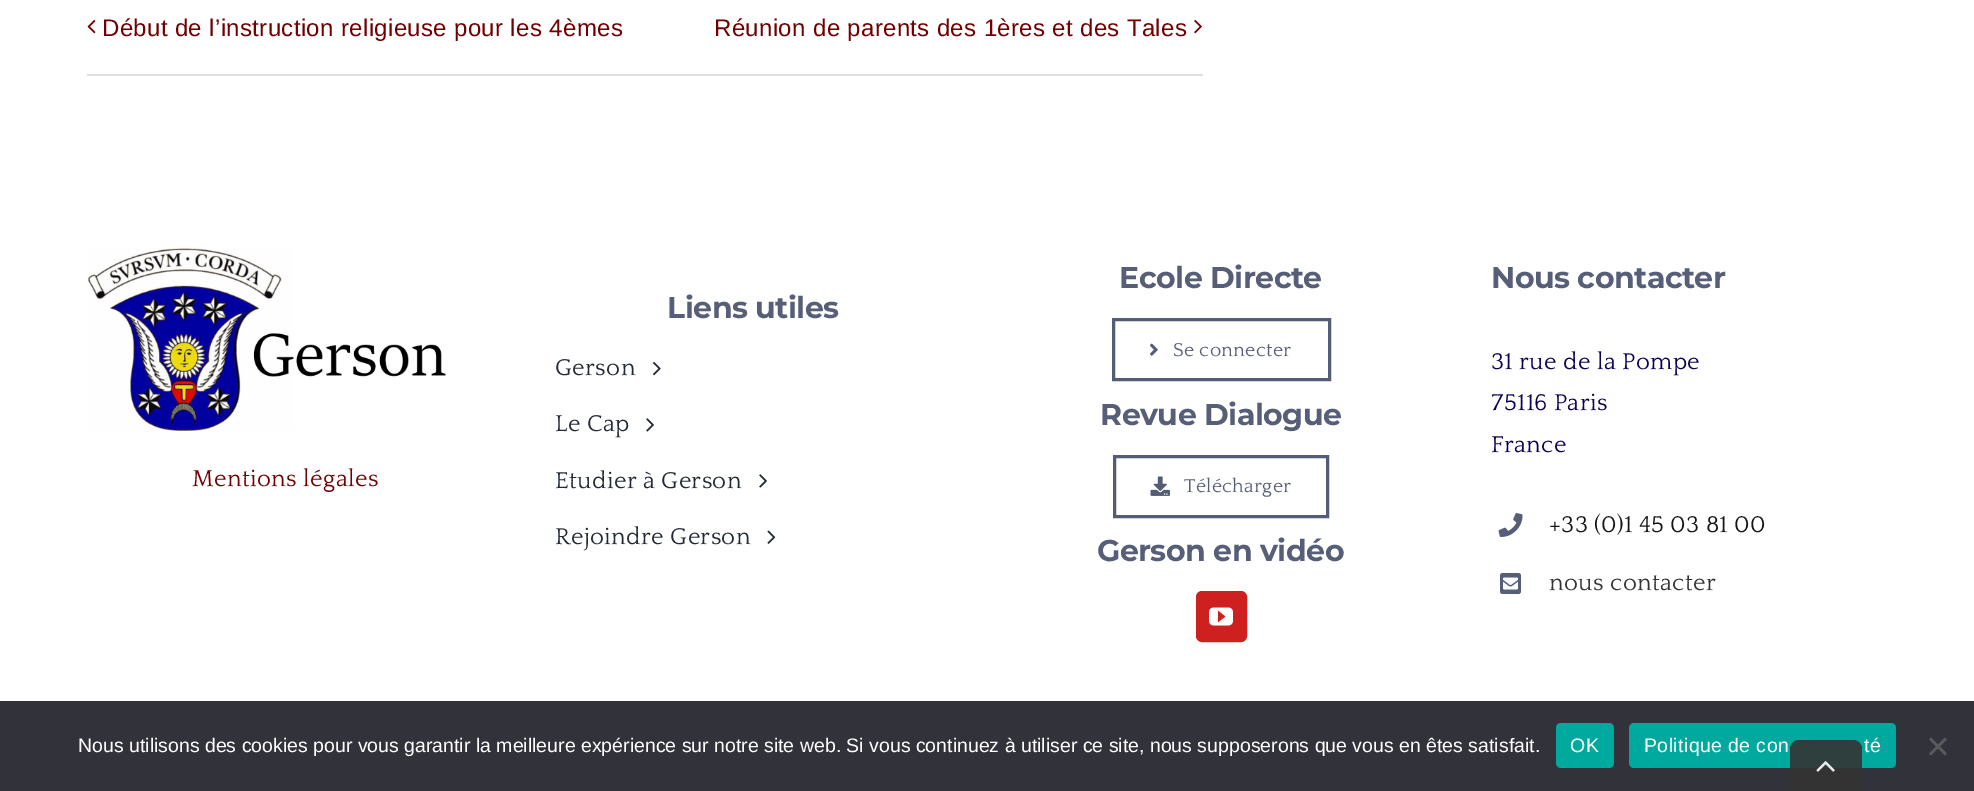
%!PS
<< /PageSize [1974 791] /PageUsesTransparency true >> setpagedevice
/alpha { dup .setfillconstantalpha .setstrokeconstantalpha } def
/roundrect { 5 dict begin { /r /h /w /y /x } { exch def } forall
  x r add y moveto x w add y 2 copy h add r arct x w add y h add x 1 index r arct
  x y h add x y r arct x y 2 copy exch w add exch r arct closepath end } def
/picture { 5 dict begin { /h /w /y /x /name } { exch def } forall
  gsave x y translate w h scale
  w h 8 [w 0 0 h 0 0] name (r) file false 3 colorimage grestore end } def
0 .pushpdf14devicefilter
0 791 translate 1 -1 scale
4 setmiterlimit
1 setgray
0 0 1974 791 rectfill
0.878 0.871 0.871 setrgbcolor
87 74 1116 2 rectfill
(img1.rgb) 87 19 9 15 picture
/LiberationSans-Regular [24 0 0 -24 0 0] selectfont
0.439 0 0 setrgbcolor
102 36 moveto 0.35 0 (Début de l’instruction religieuse pour les 4èmes) ashow
714 36 moveto 0.35 0 (Réunion de parents des 1ères et des Tales) ashow
(img2.rgb) 1194 19 8 15 picture
(img3.rgb) 87 247 359 184 picture
/Quattrocento-Regular [24 0 0 -24 0 0] selectfont
192 486 moveto 0.35 0 (Mentions légales) ashow
/Montserrat-Thin [30 0 0 -30 0 0] selectfont
0.337 0.369 0.471 setrgbcolor
667 318 moveto -0.5 0 (Liens utiles) ashow
/Quattrocento-Regular [24 0 0 -24 0 0] selectfont
0.129 0.161 0.204 setrgbcolor
555 375 moveto 0.35 0 (Gerson) ashow
(img4.rgb) 653 362 8 14 picture
555 431 moveto 0.35 0 (Le Cap) ashow
(img5.rgb) 646 418 8 14 picture
555 488 moveto 0.35 0 (Etudier à Gerson) ashow
(img6.rgb) 759 474 8 14 picture
555 544 moveto 0.35 0 (Rejoindre Gerson) ashow
(img7.rgb) 767 530 9 14 picture
/Montserrat-Thin [30 0 0 -30 0 0] selectfont
0.337 0.369 0.471 setrgbcolor
1119 288 moveto -0.5 0 (Ecole Directe) ashow
0.329 0.361 0.463 setrgbcolor
3 setlinewidth
1113.5 319.5 216 60 rectstroke
(img8.rgb) 1150 343 8 13 picture
/Quattrocento-Regular [19.5 0 0 -19.5 0 0] selectfont
0.337 0.369 0.471 setrgbcolor
1173 356 moveto 0.25 0 (Se connecter) ashow
/Montserrat-Thin [30 0 0 -30 0 0] selectfont
1100 425 moveto -0.5 0 (Revue Dialogue) ashow
0.329 0.361 0.463 setrgbcolor
1114.5 456.5 213 60 rectstroke
(img9.rgb) 1150 476 20 20 picture
/Quattrocento-Regular [19.5 0 0 -19.5 0 0] selectfont
0.337 0.369 0.471 setrgbcolor
1184 492 moveto 0.25 0 (Télécharger) ashow
/Montserrat-Thin [30 0 0 -30 0 0] selectfont
1097 561 moveto -0.5 0 (Gerson en vidéo) ashow
0.804 0.125 0.122 setrgbcolor
1197 592 49 49 5 roundrect gsave fill grestore
2 setlinewidth
stroke
(img10.rgb) 1209 607 24 19 picture
0.337 0.369 0.471 setrgbcolor
1491 288 moveto -0.5 0 (Nous contacter) ashow
/Quattrocento-Regular [24 0 0 -24 0 0] selectfont
0.043 0 0.329 setrgbcolor
1491 369 moveto 0.35 0 (31 rue de la Pompe) ashow
1491 410 moveto 0.35 0 (75116 Paris) ashow
1491 452 moveto 0.35 0 (France) ashow
(img11.rgb) 1498 513 25 24 picture
0.078 0.086 0.09 setrgbcolor
1549 532 moveto 0.35 0 (+33 \(0\)1 45 03 81 00) ashow
(img12.rgb) 1500 573 21 21 picture
0.2 setgray
1549 590 moveto 0.35 0 (nous contacter) ashow
0.196 0.196 0.227 setrgbcolor
0 701 1974 90 rectfill
/LiberationSans-Regular [19.5 0 0 -19.5 0 0] selectfont
1 setgray
78 752 moveto (Nous utilisons des cookies pour vous garantir la meilleure expérience sur notre site web. Si vous continuez à utiliser ce site, nous supposerons que vous en êtes satisfait.) show
0 0.663 0.616 setrgbcolor
1556 723 58 45 5 roundrect fill
1 setgray
1570 752 moveto 0.4 0 (OK) ashow
0 0.663 0.616 setrgbcolor
1629 723 267 45 5 roundrect fill
1 setgray
1644 752 moveto 0.4 0 (Politique de con) ashow
1864 752 moveto 0.4 0 (té) ashow
0.349 0.349 0.365 setrgbcolor
newpath 1945 737.5 moveto 1947 739.5 lineto 1931 755.5 lineto 1929 753.5 lineto closepath fill
newpath 1929 739.5 moveto 1931 737.5 lineto 1947 753.5 lineto 1945 755.5 lineto closepath fill
0.9 alpha
0.2 setgray
newpath 1799 740 moveto 1853 740 lineto 1858 740 1862 744 1862 749 curveto 1862 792 lineto 1790 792 lineto 1790 749 lineto 1790 744 1794 740 1799 740 curveto closepath fill
1 alpha
(img13.rgb) 1816 761 19 11 picture
.poppdf14devicefilter showpage
